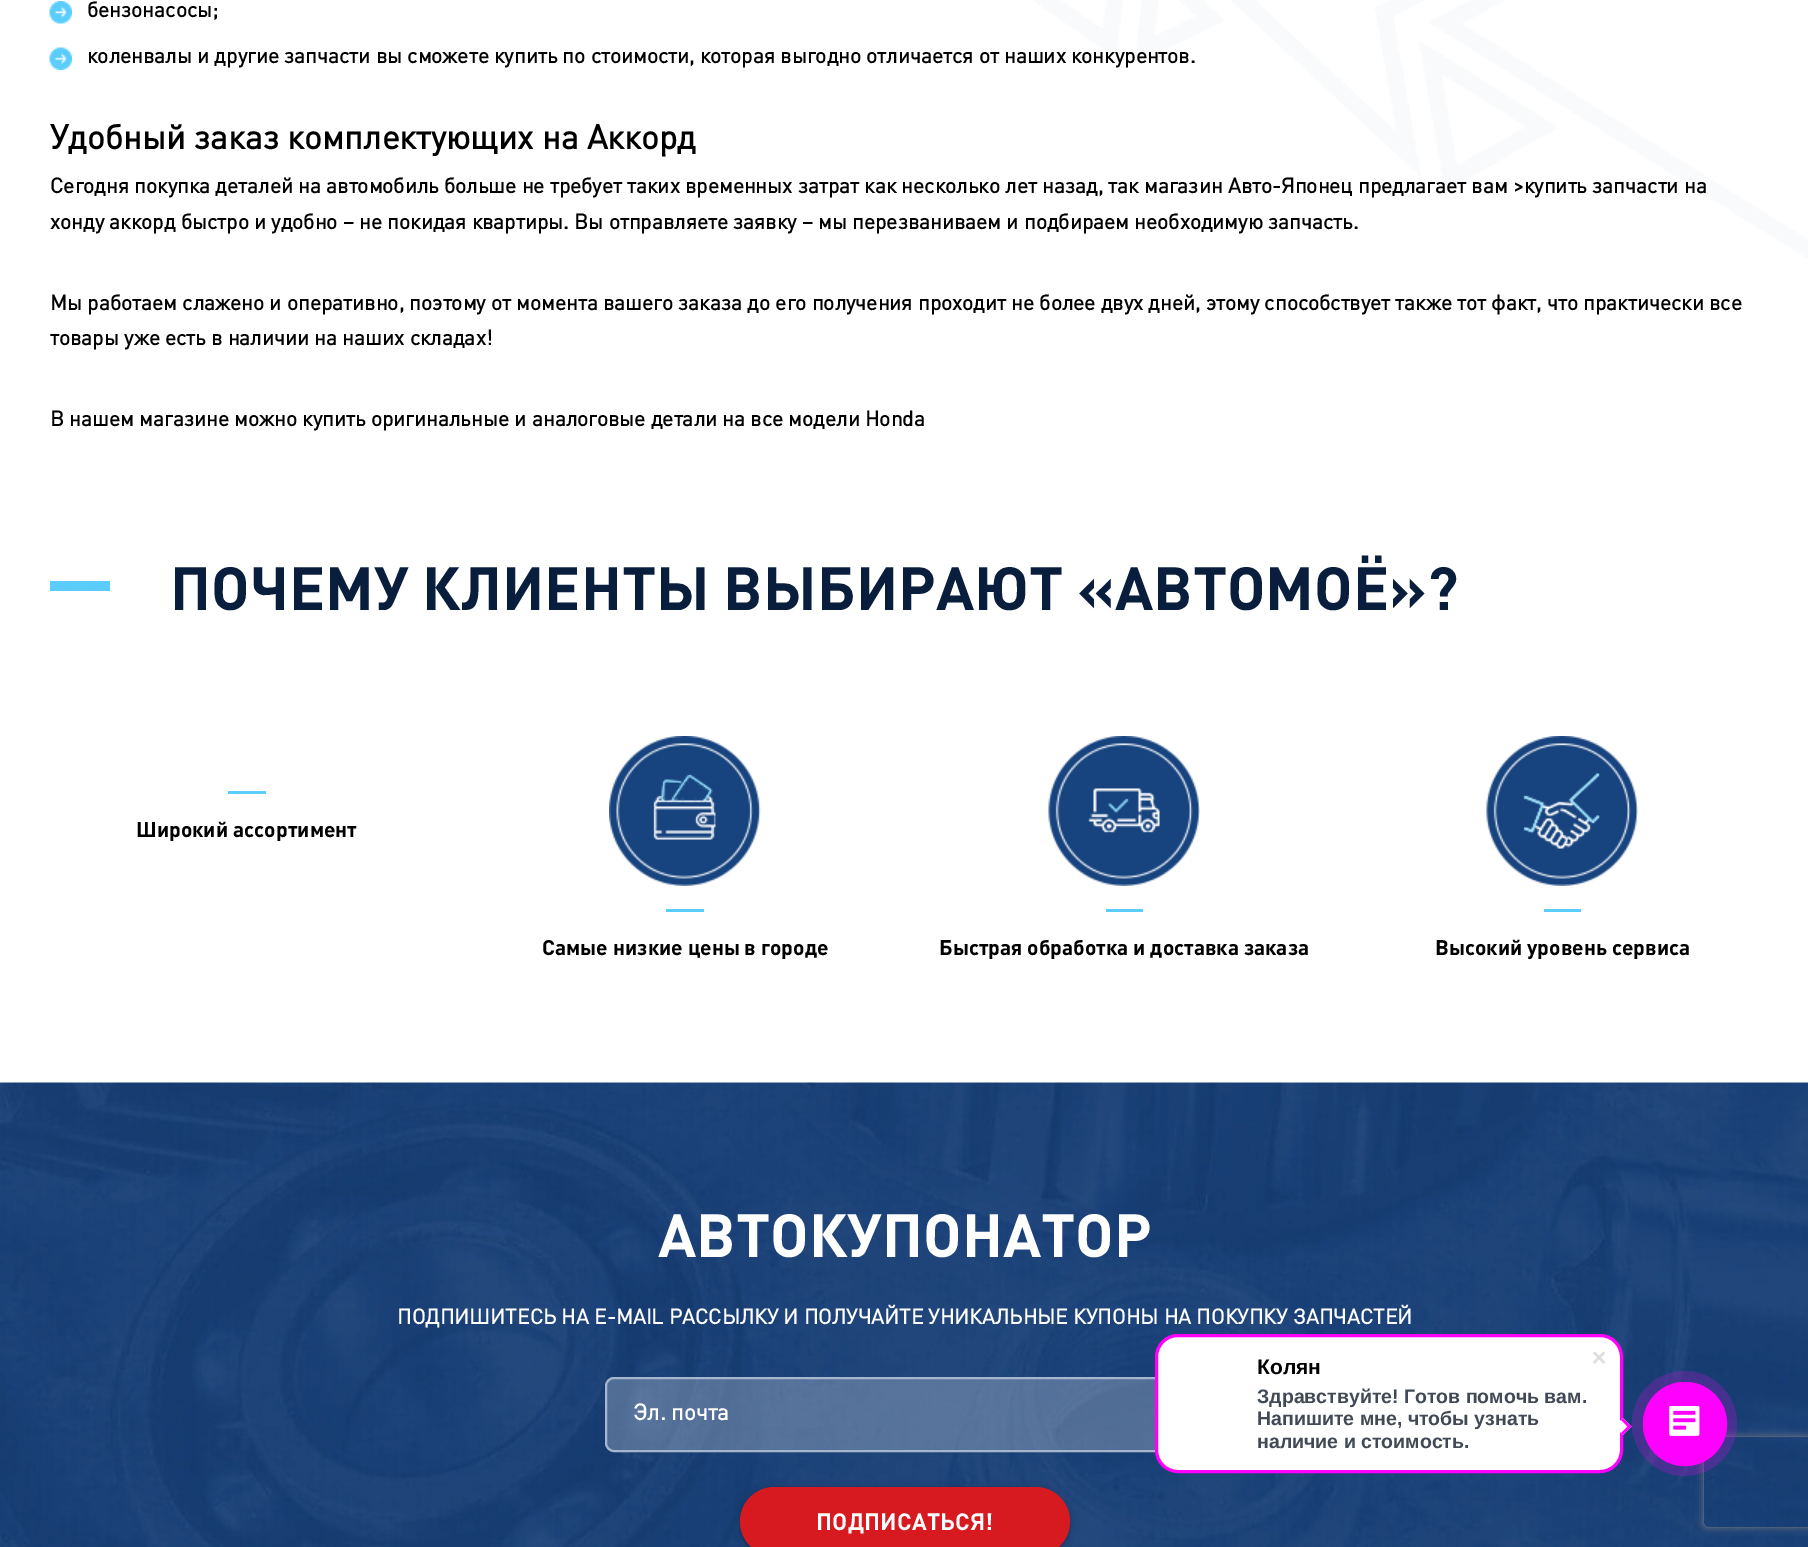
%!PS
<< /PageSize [1808 1547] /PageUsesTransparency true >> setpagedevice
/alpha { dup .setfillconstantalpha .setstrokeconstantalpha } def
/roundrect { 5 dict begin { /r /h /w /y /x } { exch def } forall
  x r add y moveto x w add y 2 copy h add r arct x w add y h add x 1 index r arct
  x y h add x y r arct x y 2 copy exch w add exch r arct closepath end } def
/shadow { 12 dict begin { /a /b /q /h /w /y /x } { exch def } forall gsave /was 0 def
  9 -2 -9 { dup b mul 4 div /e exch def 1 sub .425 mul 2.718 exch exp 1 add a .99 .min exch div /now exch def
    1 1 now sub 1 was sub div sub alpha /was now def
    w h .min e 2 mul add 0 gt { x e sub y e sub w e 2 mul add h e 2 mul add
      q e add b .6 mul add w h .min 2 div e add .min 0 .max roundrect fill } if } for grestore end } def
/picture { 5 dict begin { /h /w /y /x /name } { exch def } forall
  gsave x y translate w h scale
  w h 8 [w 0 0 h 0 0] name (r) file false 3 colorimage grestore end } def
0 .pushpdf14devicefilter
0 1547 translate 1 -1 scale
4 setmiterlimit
1 setgray
0 0 1808 1547 rectfill
(img1.rgb) 1033 0 775 259 picture
(img2.rgb) 49 1 23 23 picture
/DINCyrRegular-Bold [21 0 0 -21 0 0] selectfont
0 setgray
87 17 moveto (бензонасосы;) show
(img3.rgb) 49 47 23 23 picture
87 63 moveto (коленвалы и другие запчасти вы сможете купить по стоимости, которая выгодно отличается от наших конкурентов.) show
/DINCyrRegular-Bold [33.75 0 0 -33.75 0 0] selectfont
50 149 moveto (Удобный заказ комплектующих на Аккорд) show
/DINCyrRegular-Bold [21 0 0 -21 0 0] selectfont
50 193 moveto (Сегодня покупка деталей на автомобиль больше не требует таких временных затрат как несколько лет назад, так магазин Авто-Японец предлагает вам >купить запчасти на) show
50 229 moveto (хонду аккорд быстро и удобно – не покидая квартиры. Вы отправляете заявку – мы перезваниваем и подбираем необходимую запчасть.) show
50 310 moveto (Мы работаем слажено и оперативно, поэтому от момента вашего заказа до его получения проходит не более двух дней, этому способствует также тот факт, что практически все) show
50 345 moveto (товары уже есть в наличии на наших складах!) show
50 426 moveto (В нашем магазине можно купить оригинальные и аналоговые детали на все модели Honda) show
0.357 0.804 0.988 setrgbcolor
50 581 60 10 rectfill
/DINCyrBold-Bold [60 0 0 -60 0 0] selectfont
0.035 0.118 0.235 setrgbcolor
170 610 moveto (ПОЧЕМУ КЛИЕНТЫ ВЫБИРАЮТ «АВТОМОЁ»?) show
0.357 0.804 0.988 setrgbcolor
228 791 38 3 rectfill
/DINCyrBold-Bold [21 0 0 -21 0 0] selectfont
0 setgray
136 837 moveto (Широкий ассортимент) show
(img4.rgb) 609 736 152 150 picture
0.357 0.804 0.988 setrgbcolor
666 909 38 3 rectfill
0 setgray
542 955 moveto (Самые низкие цены в городе) show
(img5.rgb) 1048 736 152 150 picture
0.357 0.804 0.988 setrgbcolor
1106 909 37 3 rectfill
0 setgray
939 955 moveto (Быстрая обработка и доставка заказа) show
(img6.rgb) 1486 736 152 150 picture
0.357 0.804 0.988 setrgbcolor
1544 909 37 3 rectfill
0 setgray
1435 955 moveto (Высокий уровень сервиса) show
(img7.rgb) 0 1082 1808 465 picture
/DINCyrBold-Bold [60 0 0 -60 0 0] selectfont
1 setgray
658 1257 moveto (АВТОКУПОНАТОР) show
/DINCyrRegular-Bold [21 0 0 -21 0 0] selectfont
397 1324 moveto (ПОДПИШИТЕСЬ НА E-MAIL РАССЫЛКУ И ПОЛУЧАЙТЕ УНИКАЛЬНЫЕ КУПОНЫ НА ПОКУПКУ ЗАПЧАСТЕЙ) show
0.25 alpha
606 1378 598 73 8 roundrect fill
1 alpha
0.651 0.718 0.804 setrgbcolor
2 setlinewidth
606 1378 598 73 8 roundrect stroke
/DINCyrRegular-Bold [22.5 0 0 -22.5 0 0] selectfont
1 setgray
633 1420 moveto (Эл. почта) show
0 setgray
740 1488 330 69 34.5 4 0.2 shadow
743 1494 324 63 31.5 1 0.12 shadow
740 1490 330 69 34.5 1.5 0.14 shadow
0.843 0.098 0.125 setrgbcolor
740 1487 330 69 34.5 roundrect fill
/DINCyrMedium-Bold [22.5 0 0 -22.5 0 0] selectfont
1 setgray
816 1530 moveto 0.75 0 (ПОДПИСАТЬСЯ!) ashow
1156.5 1335.5 465 136 21.5 roundrect gsave fill grestore
1 0 1 setrgbcolor
3 setlinewidth
stroke
(img8.rgb) 1593 1351 13 13 picture
/LiberationSans-Bold [21 0 0 -21 0 0] selectfont
0 setgray
1257 1374 moveto (Колян) show
/LiberationSans-Bold [19.5 0 0 -19.5 0 0] selectfont
0.259 0.286 0.337 setrgbcolor
1257 1403 moveto (Здравствуйте! Готов помочь вам.) show
1257 1425 moveto (Напишите мне, чтобы узнать) show
1257 1448 moveto (наличие и стоимость.) show
1 setgray
newpath 1614.5 1426.5 moveto 1623 1418 lineto 1631.5 1426.5 lineto 1623 1435 lineto closepath fill
1 0 1 setrgbcolor
newpath 1621 1420 moveto 1623 1418 lineto 1631.5 1426.5 lineto 1629.5 1428.5 lineto closepath fill
newpath 1621 1433 moveto 1629.5 1424.5 lineto 1631.5 1426.5 lineto 1623 1435 lineto closepath fill
gsave
newpath 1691 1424 moveto 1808 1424 lineto 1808 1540 lineto 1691 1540 lineto closepath 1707 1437 moveto 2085 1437 lineto 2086.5 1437 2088 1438.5 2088 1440 curveto 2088 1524 lineto 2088 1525.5 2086.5 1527 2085 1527 curveto 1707 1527 lineto 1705.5 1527 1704 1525.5 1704 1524 curveto 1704 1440 lineto 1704 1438.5 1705.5 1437 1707 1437 curveto closepath eoclip newpath
0.502 setgray
1704 1437 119 90 3 4 1 shadow
grestore
0.2 alpha
newpath 1684.5 1423.5 52.5 0 360 arc closepath fill
1 alpha
1 setlinewidth
newpath 1685 1424 41.5 0 360 arc closepath stroke
newpath 1685 1424 42 0 360 arc closepath fill
(img9.rgb) 1669 1406 31 30 picture
.poppdf14devicefilter showpage
